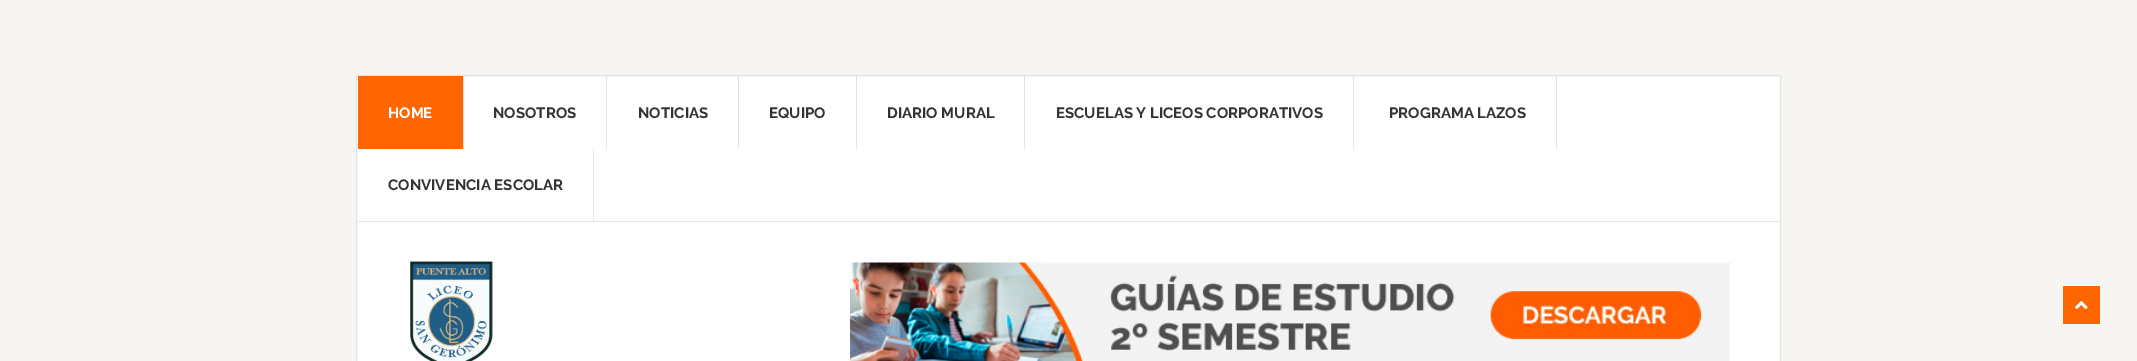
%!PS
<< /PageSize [2137 361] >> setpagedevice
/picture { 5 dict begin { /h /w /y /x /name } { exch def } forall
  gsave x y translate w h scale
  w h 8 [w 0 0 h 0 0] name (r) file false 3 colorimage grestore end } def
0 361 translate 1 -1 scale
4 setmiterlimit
0.965 0.961 0.949 setrgbcolor
0 0 2137 361 rectfill
1 setgray
newpath 356.5 75.5 moveto 1780.5 75.5 lineto 1780.5 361.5 lineto 356.5 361.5 lineto closepath gsave fill grestore
0.89 setgray
stroke
358 221 1422 1 rectfill
1 0.4 0 setrgbcolor
358 76 105 73 rectfill
0.89 setgray
463 76 1 73 rectfill
/Raleway-Bold [15 0 0 -15 0 0] selectfont
1 setgray
388 118 moveto (HOME) show
0.89 setgray
606 76 1 73 rectfill
0.2 setgray
493 118 moveto (NOSOTROS) show
0.89 setgray
738 76 1 73 rectfill
0.2 setgray
638 118 moveto (NOTICIAS) show
0.89 setgray
856 76 1 73 rectfill
0.2 setgray
769 118 moveto (EQUIPO) show
0.89 setgray
1024 76 1 73 rectfill
0.2 setgray
887 118 moveto (DIARIO MURAL) show
0.89 setgray
1353 76 1 73 rectfill
0.2 setgray
1056 118 moveto (ESCUELAS Y LICEOS CORPORATIVOS) show
0.89 setgray
1556 76 1 73 rectfill
0.2 setgray
1389 118 moveto (PROGRAMA LAZOS) show
0.89 setgray
593 149 1 72 rectfill
0.2 setgray
388 190 moveto (CONVIVENCIA ESCOLAR) show
(img1.rgb) 410 261 83 100 picture
(img2.rgb) 850 262 880 99 picture
1 0.4 0 setrgbcolor
2063 286 37 38 rectfill
(img3.rgb) 2075 301 13 8 picture
showpage
